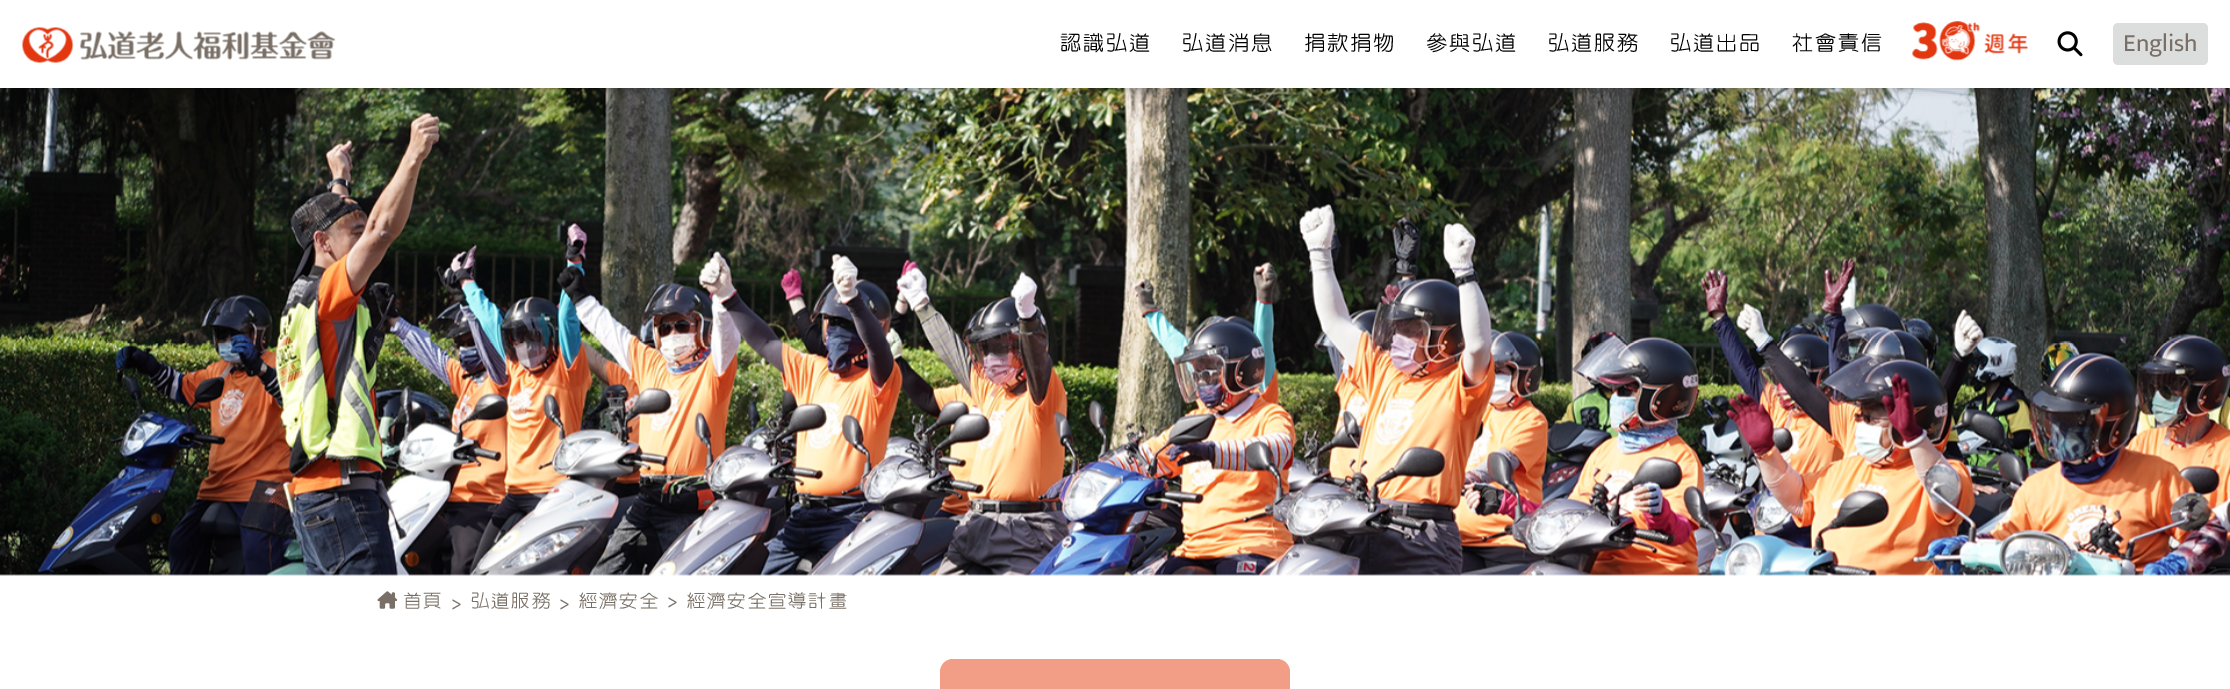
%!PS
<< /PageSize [2230 689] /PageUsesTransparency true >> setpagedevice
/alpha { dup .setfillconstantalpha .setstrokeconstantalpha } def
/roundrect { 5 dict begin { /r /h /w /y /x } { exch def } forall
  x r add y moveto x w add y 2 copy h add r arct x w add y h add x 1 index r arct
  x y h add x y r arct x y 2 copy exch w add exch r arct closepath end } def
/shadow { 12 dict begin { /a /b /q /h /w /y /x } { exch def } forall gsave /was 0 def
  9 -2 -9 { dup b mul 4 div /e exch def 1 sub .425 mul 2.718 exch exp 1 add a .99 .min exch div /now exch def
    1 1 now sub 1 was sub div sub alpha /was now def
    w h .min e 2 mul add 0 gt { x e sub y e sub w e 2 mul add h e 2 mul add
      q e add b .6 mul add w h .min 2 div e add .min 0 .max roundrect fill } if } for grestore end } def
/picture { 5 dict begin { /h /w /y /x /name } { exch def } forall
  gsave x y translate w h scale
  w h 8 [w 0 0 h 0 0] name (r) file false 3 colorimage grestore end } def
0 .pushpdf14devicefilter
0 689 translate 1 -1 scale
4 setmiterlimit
1 setgray
0 0 2230 689 rectfill
(img4.rgb) 0 88 2230 488 picture
0 setgray
0 4 2230 87 0 4 0.16 shadow
1 setgray
0 0 2230 88 rectfill
(img1.rgb) 22 27 314 36 picture
/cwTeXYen-Medium [25 0 0 -25 0 0] selectfont
0 setgray
1059 51 moveto (認識弘道) show
1181 51 moveto (弘道消息) show
1303 51 moveto (捐款捐物) show
1425 51 moveto (參與弘道) show
1547 51 moveto (弘道服務) show
1669 51 moveto (弘道出品) show
1791 51 moveto (社會責信) show
(img2.rgb) 1912 21 116 40 picture
(img3.rgb) 2057 31 26 26 picture
0.863 0.867 0.867 setrgbcolor
2113 23 95 42 5 roundrect fill
/Mukta-Regular [25 0 0 -25 0 0] selectfont
0.475 0.435 0.4 setrgbcolor
2123 51 moveto (English) show
(img5.rgb) 377 591 21 18 picture
/cwTeXYen-Medium [22 0 0 -22 0 0] selectfont
402 608 moveto (首頁) show
/Mukta-Regular [22 0 0 -22 0 0] selectfont
451 610 moveto (>) show
/cwTeXYen-Medium [22 0 0 -22 0 0] selectfont
470 608 moveto (弘道服務) show
/Mukta-Regular [22 0 0 -22 0 0] selectfont
559 610 moveto (>) show
/cwTeXYen-Medium [22 0 0 -22 0 0] selectfont
578 608 moveto (經濟安全) show
/Mukta-Regular [22 0 0 -22 0 0] selectfont
667 608 moveto (>) show
/cwTeXYen-Medium [22 0 0 -22 0 0] selectfont
686 608 moveto (經濟安全宣導計畫) show
0.949 0.616 0.525 setrgbcolor
940 659 350 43 13 roundrect fill
.poppdf14devicefilter showpage
